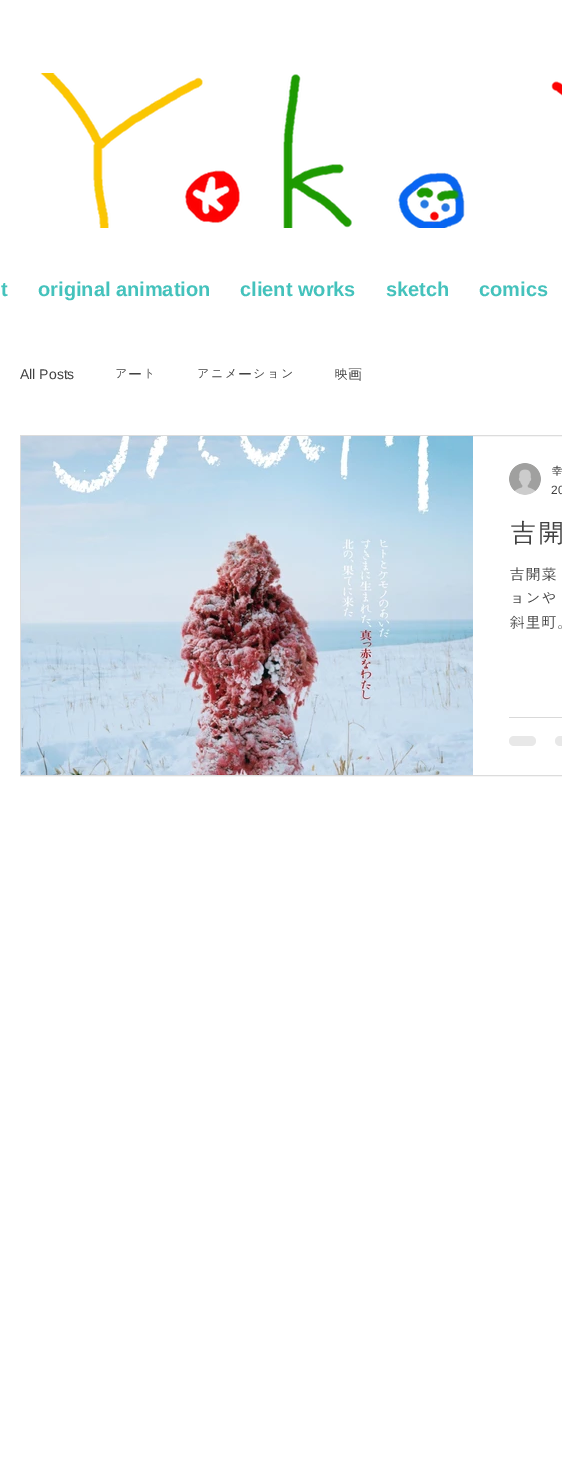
%!PS
<< /PageSize [562 1479] >> setpagedevice
/roundrect { 5 dict begin { /r /h /w /y /x } { exch def } forall
  x r add y moveto x w add y 2 copy h add r arct x w add y h add x 1 index r arct
  x y h add x y r arct x y 2 copy exch w add exch r arct closepath end } def
/picture { 5 dict begin { /h /w /y /x /name } { exch def } forall
  gsave x y translate w h scale
  w h 8 [w 0 0 h 0 0] name (r) file false 3 colorimage grestore end } def
0 1479 translate 1 -1 scale
4 setmiterlimit
1 setgray
0 0 562 1479 rectfill
(img1.rgb) 40 73 522 155 picture
/LiberationSans-Bold [20 0 0 -20 0 0] selectfont
0.267 0.761 0.737 setrgbcolor
1 296 moveto (t) show
38 296 moveto (original animation) show
240 296 moveto (client works) show
386 296 moveto (sketch) show
479 296 moveto (comics) show
/LiberationSans-Regular [14 0 0 -14 0 0] selectfont
0.255 setgray
20 379 moveto (All Posts) show
/Dotum-Regular [14 0 0 -14 0 0] selectfont
114 379 moveto (ア) show
/WenQuanYiZenHei-Medium [14 0 0 -14 0 0] selectfont
128 379 moveto (ー) show
/Dotum-Regular [14 0 0 -14 0 0] selectfont
142 379 moveto (ト) show
196 379 moveto (アニメ) show
/WenQuanYiZenHei-Medium [14 0 0 -14 0 0] selectfont
238 379 moveto (ー) show
/Dotum-Regular [14 0 0 -14 0 0] selectfont
252 379 moveto (ション) show
334 379 moveto (映) show
/WenQuanYiZenHei-Medium [14 0 0 -14 0 0] selectfont
348 379 moveto (画) show
0.863 setgray
20.5 435.5 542 340 rectstroke
(img2.rgb) 21 436 452 339 picture
(img3.rgb) 509 463 32 32 picture
/Dotum-Regular [12 0 0 -12 0 0] selectfont
0.255 setgray
551 475 moveto -1 0 32 (幸) widthshow
/LiberationSans-Regular [12 0 0 -12 0 0] selectfont
551 494 moveto (20) show
/Dotum-Regular [28 0 0 -28 0 0] selectfont
509 543 moveto (吉開) show
/Dotum-Regular [16 0 0 -16 0 0] selectfont
509 580 moveto (吉開菜) show
509 604 moveto (ョンや) show
509 628 moveto -1 0 32 (斜里町。) widthshow
0.851 setgray
509 717 53 1 rectfill
0.91 setgray
509 736 27 10 5 roundrect fill
555 736 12 10 5 roundrect fill
showpage
